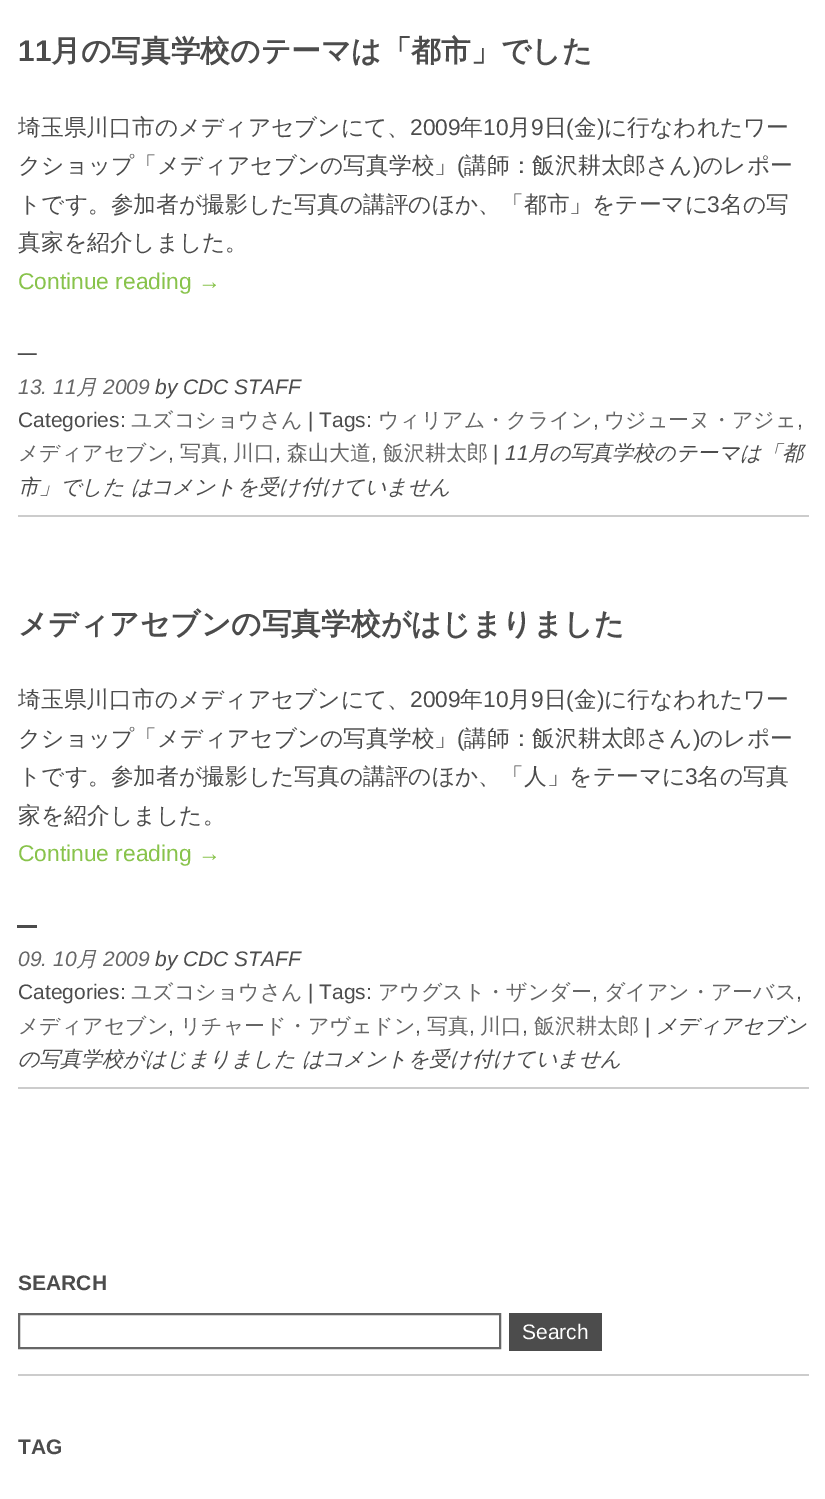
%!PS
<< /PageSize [825 1499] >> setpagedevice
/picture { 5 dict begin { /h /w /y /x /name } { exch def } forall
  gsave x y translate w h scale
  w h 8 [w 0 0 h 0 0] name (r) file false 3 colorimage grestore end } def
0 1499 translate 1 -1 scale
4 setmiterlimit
1 setgray
0 0 825 1499 rectfill
0.8 setgray
18 515 791 2 rectfill
/LiberationSans-Bold [29.75 0 0 -29.75 0 0] selectfont
0.298 setgray
18 61 moveto (11) show
/WenQuanYiZenHei-Bold [29.75 0 0 -29.75 0 0] selectfont
51 61 moveto (月の写真学校のテーマは「都市」でした) show
gsave
18 0 791 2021 rectclip
/WenQuanYiZenHei-Medium [22.75 0 0 -22.75 0 0] selectfont
18 135 moveto (埼玉県川口市のメディアセブンにて、) show
grestore
/LiberationSans-Regular [22.75 0 0 -22.75 0 0] selectfont
410 135 moveto (2009) show
/WenQuanYiZenHei-Medium [22.75 0 0 -22.75 0 0] selectfont
460 135 moveto (年) show
/LiberationSans-Regular [22.75 0 0 -22.75 0 0] selectfont
483 135 moveto (10) show
/WenQuanYiZenHei-Medium [22.75 0 0 -22.75 0 0] selectfont
508 135 moveto (月) show
/LiberationSans-Regular [22.75 0 0 -22.75 0 0] selectfont
531 135 moveto (9) show
/WenQuanYiZenHei-Medium [22.75 0 0 -22.75 0 0] selectfont
544 135 moveto (日) show
/LiberationSans-Regular [22.75 0 0 -22.75 0 0] selectfont
566 135 moveto (\() show
/WenQuanYiZenHei-Medium [22.75 0 0 -22.75 0 0] selectfont
574 135 moveto (金) show
/LiberationSans-Regular [22.75 0 0 -22.75 0 0] selectfont
597 135 moveto (\)) show
/WenQuanYiZenHei-Medium [22.75 0 0 -22.75 0 0] selectfont
604 135 moveto (に行なわれたワー) show
18 173 moveto (クショップ「メディアセブンの写真学校」) show
/LiberationSans-Regular [22.75 0 0 -22.75 0 0] selectfont
457 173 moveto (\() show
/WenQuanYiZenHei-Medium [22.75 0 0 -22.75 0 0] selectfont
464 173 moveto (講師：飯沢耕太郎さん) show
/LiberationSans-Regular [22.75 0 0 -22.75 0 0] selectfont
693 173 moveto (\)) show
/WenQuanYiZenHei-Medium [22.75 0 0 -22.75 0 0] selectfont
700 173 moveto (のレポー) show
18 212 moveto (トです。参加者が撮影した写真の講評のほか、「都市」をテーマに) show
/LiberationSans-Regular [22.75 0 0 -22.75 0 0] selectfont
707 212 moveto (3) show
/WenQuanYiZenHei-Medium [22.75 0 0 -22.75 0 0] selectfont
720 212 moveto (名の写) show
18 250 moveto (真家を紹介しました。) show
/LiberationSans-Regular [22.75 0 0 -22.75 0 0] selectfont
0.533 0.765 0.294 setrgbcolor
18 289 moveto (Continue reading →) show
(img1.rgb) 17 353 20 2 picture
/LiberationSans-Italic [21 0 0 -21 0 0] selectfont
0.4 setgray
18 394 moveto (13. 11) show
/WenQuanYiZenHei-MediumItalic [21 0 0 -21 0 0] selectfont
76 394 moveto (月) show
/LiberationSans-Italic [21 0 0 -21 0 0] selectfont
103 394 moveto (2009) show
0.298 setgray
155 394 moveto (by CDC STAFF) show
/LiberationSans-Regular [21 0 0 -21 0 0] selectfont
18 427 moveto (Categories:) show
/WenQuanYiZenHei-Medium [21 0 0 -21 0 0] selectfont
0.4 setgray
131 427 moveto (ユズコショウさん) show
/LiberationSans-Regular [21 0 0 -21 0 0] selectfont
0.298 setgray
308 427 moveto (| Tags:) show
/WenQuanYiZenHei-Medium [21 0 0 -21 0 0] selectfont
0.4 setgray
378 427 moveto (ウィリアム・クライン) show
/LiberationSans-Regular [21 0 0 -21 0 0] selectfont
0.298 setgray
593 427 moveto (,) show
/WenQuanYiZenHei-Medium [21 0 0 -21 0 0] selectfont
0.4 setgray
604 427 moveto (ウジューヌ・アジェ) show
/LiberationSans-Regular [21 0 0 -21 0 0] selectfont
0.298 setgray
797 427 moveto (,) show
/WenQuanYiZenHei-Medium [21 0 0 -21 0 0] selectfont
0.4 setgray
18 460 moveto (メディアセブン) show
/LiberationSans-Regular [21 0 0 -21 0 0] selectfont
0.298 setgray
168 460 moveto (,) show
/WenQuanYiZenHei-Medium [21 0 0 -21 0 0] selectfont
0.4 setgray
180 460 moveto (写真) show
/LiberationSans-Regular [21 0 0 -21 0 0] selectfont
0.298 setgray
222 460 moveto (,) show
/WenQuanYiZenHei-Medium [21 0 0 -21 0 0] selectfont
0.4 setgray
233 460 moveto (川口) show
/LiberationSans-Regular [21 0 0 -21 0 0] selectfont
0.298 setgray
275 460 moveto (,) show
/WenQuanYiZenHei-Medium [21 0 0 -21 0 0] selectfont
0.4 setgray
287 460 moveto (森山大道) show
/LiberationSans-Regular [21 0 0 -21 0 0] selectfont
0.298 setgray
371 460 moveto (,) show
/WenQuanYiZenHei-Medium [21 0 0 -21 0 0] selectfont
0.4 setgray
383 460 moveto (飯沢耕太郎) show
/LiberationSans-Regular [21 0 0 -21 0 0] selectfont
0.298 setgray
493 460 moveto (|) show
/LiberationSans-Italic [21 0 0 -21 0 0] selectfont
505 460 moveto (11) show
/WenQuanYiZenHei-MediumItalic [21 0 0 -21 0 0] selectfont
528 460 moveto (月の写真学校のテーマは「都) show
18 494 moveto (市」でした は) show
151 494 moveto (コメントを受け付けていません) show
0.8 setgray
18 1087 791 2 rectfill
/WenQuanYiZenHei-Bold [29.75 0 0 -29.75 0 0] selectfont
0.298 setgray
18 634 moveto (メディアセブンの写真学校がはじまりました) show
gsave
18 0 791 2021 rectclip
/WenQuanYiZenHei-Medium [22.75 0 0 -22.75 0 0] selectfont
18 707 moveto (埼玉県川口市のメディアセブンにて、) show
grestore
/LiberationSans-Regular [22.75 0 0 -22.75 0 0] selectfont
410 707 moveto (2009) show
/WenQuanYiZenHei-Medium [22.75 0 0 -22.75 0 0] selectfont
460 707 moveto (年) show
/LiberationSans-Regular [22.75 0 0 -22.75 0 0] selectfont
483 707 moveto (10) show
/WenQuanYiZenHei-Medium [22.75 0 0 -22.75 0 0] selectfont
508 707 moveto (月) show
/LiberationSans-Regular [22.75 0 0 -22.75 0 0] selectfont
531 707 moveto (9) show
/WenQuanYiZenHei-Medium [22.75 0 0 -22.75 0 0] selectfont
544 707 moveto (日) show
/LiberationSans-Regular [22.75 0 0 -22.75 0 0] selectfont
566 707 moveto (\() show
/WenQuanYiZenHei-Medium [22.75 0 0 -22.75 0 0] selectfont
574 707 moveto (金) show
/LiberationSans-Regular [22.75 0 0 -22.75 0 0] selectfont
597 707 moveto (\)) show
/WenQuanYiZenHei-Medium [22.75 0 0 -22.75 0 0] selectfont
604 707 moveto (に行なわれたワー) show
18 746 moveto (クショップ「メディアセブンの写真学校」) show
/LiberationSans-Regular [22.75 0 0 -22.75 0 0] selectfont
457 746 moveto (\() show
/WenQuanYiZenHei-Medium [22.75 0 0 -22.75 0 0] selectfont
464 746 moveto (講師：飯沢耕太郎さん) show
/LiberationSans-Regular [22.75 0 0 -22.75 0 0] selectfont
693 746 moveto (\)) show
/WenQuanYiZenHei-Medium [22.75 0 0 -22.75 0 0] selectfont
700 746 moveto (のレポー) show
18 784 moveto (トです。参加者が撮影した写真の講評のほか、「人」をテーマに) show
/LiberationSans-Regular [22.75 0 0 -22.75 0 0] selectfont
685 784 moveto (3) show
/WenQuanYiZenHei-Medium [22.75 0 0 -22.75 0 0] selectfont
697 784 moveto (名の写真) show
18 823 moveto (家を紹介しました。) show
/LiberationSans-Regular [22.75 0 0 -22.75 0 0] selectfont
0.533 0.765 0.294 setrgbcolor
18 861 moveto (Continue reading →) show
0.298 setgray
17 925 20 3 rectfill
/LiberationSans-Italic [21 0 0 -21 0 0] selectfont
0.4 setgray
18 966 moveto (09. 10) show
/WenQuanYiZenHei-MediumItalic [21 0 0 -21 0 0] selectfont
76 966 moveto (月) show
/LiberationSans-Italic [21 0 0 -21 0 0] selectfont
103 966 moveto (2009) show
0.298 setgray
155 966 moveto (by CDC STAFF) show
/LiberationSans-Regular [21 0 0 -21 0 0] selectfont
18 999 moveto (Categories:) show
/WenQuanYiZenHei-Medium [21 0 0 -21 0 0] selectfont
0.4 setgray
131 999 moveto (ユズコショウさん) show
/LiberationSans-Regular [21 0 0 -21 0 0] selectfont
0.298 setgray
308 999 moveto (| Tags:) show
/WenQuanYiZenHei-Medium [21 0 0 -21 0 0] selectfont
0.4 setgray
378 999 moveto (アウグスト・ザンダー) show
/LiberationSans-Regular [21 0 0 -21 0 0] selectfont
0.298 setgray
592 999 moveto (,) show
/WenQuanYiZenHei-Medium [21 0 0 -21 0 0] selectfont
0.4 setgray
604 999 moveto (ダイアン・アーバス) show
/LiberationSans-Regular [21 0 0 -21 0 0] selectfont
0.298 setgray
796 999 moveto (,) show
/WenQuanYiZenHei-Medium [21 0 0 -21 0 0] selectfont
0.4 setgray
18 1033 moveto (メディアセブン) show
/LiberationSans-Regular [21 0 0 -21 0 0] selectfont
0.298 setgray
168 1033 moveto (,) show
/WenQuanYiZenHei-Medium [21 0 0 -21 0 0] selectfont
0.4 setgray
180 1033 moveto (リチャード・アヴェドン) show
/LiberationSans-Regular [21 0 0 -21 0 0] selectfont
0.298 setgray
415 1033 moveto (,) show
/WenQuanYiZenHei-Medium [21 0 0 -21 0 0] selectfont
0.4 setgray
427 1033 moveto (写真) show
/LiberationSans-Regular [21 0 0 -21 0 0] selectfont
0.298 setgray
469 1033 moveto (,) show
/WenQuanYiZenHei-Medium [21 0 0 -21 0 0] selectfont
0.4 setgray
480 1033 moveto (川口) show
/LiberationSans-Regular [21 0 0 -21 0 0] selectfont
0.298 setgray
522 1033 moveto (,) show
/WenQuanYiZenHei-Medium [21 0 0 -21 0 0] selectfont
0.4 setgray
534 1033 moveto (飯沢耕太郎) show
/LiberationSans-Regular [21 0 0 -21 0 0] selectfont
0.298 setgray
645 1033 moveto (|) show
/WenQuanYiZenHei-MediumItalic [21 0 0 -21 0 0] selectfont
656 1033 moveto (メディアセブン) show
18 1066 moveto (の写真学校がはじまりました は) show
322 1066 moveto (コメントを受け付けていません) show
0.8 setgray
18 1374 791 2 rectfill
/LiberationSans-Bold [21 0 0 -21 0 0] selectfont
0.298 setgray
18 1290 moveto (SEARCH) show
0.4 setgray
2 setlinewidth
19 1314 481 34 rectstroke
0.298 setgray
509 1313 93 38 rectfill
/LiberationSans-Regular [21 0 0 -21 0 0] selectfont
1 setgray
522 1339 moveto (Search) show
gsave
18 1428 791 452 rectclip
/LiberationSans-Bold [21 0 0 -21 0 0] selectfont
0.298 setgray
18 1454 moveto (TAG) show
grestore
showpage
